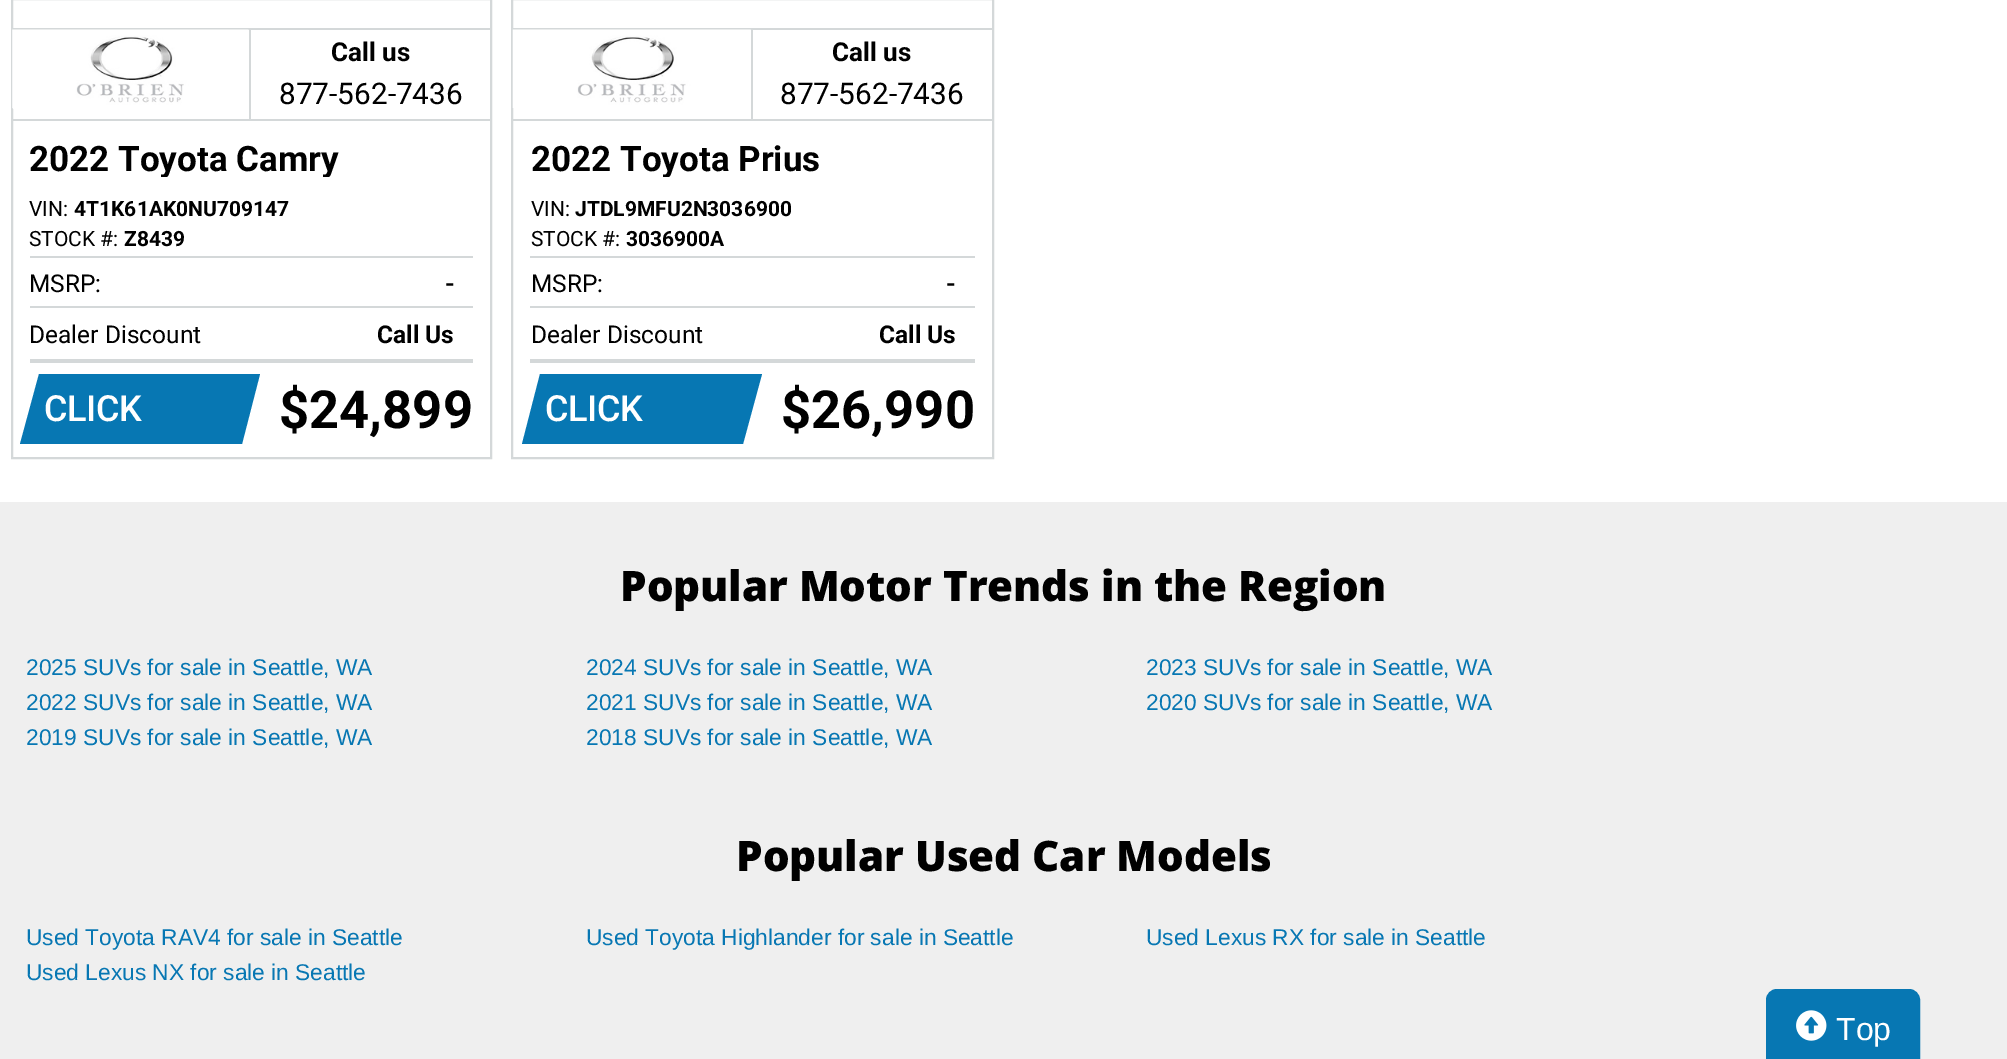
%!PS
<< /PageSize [2007 1059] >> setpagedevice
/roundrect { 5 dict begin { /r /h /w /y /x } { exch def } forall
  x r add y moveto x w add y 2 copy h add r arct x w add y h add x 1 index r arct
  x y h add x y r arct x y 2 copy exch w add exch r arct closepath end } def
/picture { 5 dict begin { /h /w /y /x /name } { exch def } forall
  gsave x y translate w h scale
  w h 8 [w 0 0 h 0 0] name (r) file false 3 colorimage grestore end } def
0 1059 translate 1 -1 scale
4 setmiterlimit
1 setgray
0 0 2007 1059 rectfill
0.831 0.847 0.851 setrgbcolor
2 setlinewidth
12 -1 479 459 rectstroke
12 28 238 2 rectfill
249 28 2 93 rectfill
12 119 478 2 rectfill
(img1.rgb) 12 29 237 80 picture
250 28 240 2 rectfill
/Roboto-Bold [26 0 0 -26 0 0] selectfont
0 setgray
331 61 moveto (Call us) show
/Roboto-Regular [29.75 0 0 -29.75 0 0] selectfont
279 104 moveto (877-562-7436) show
gsave
30 138 310 39 rectclip
/Roboto-Bold [35 0 0 -35 0 0] selectfont
29 171 moveto (2022 Toyota Camry) show
grestore
/Roboto-Regular [21 0 0 -21 0 0] selectfont
29 216 moveto (VIN:) show
/Roboto-Bold [21 0 0 -21 0 0] selectfont
74 216 moveto (4T1K61AK0NU709147) show
/Roboto-Regular [21 0 0 -21 0 0] selectfont
29 246 moveto (STOCK #:) show
/Roboto-Bold [21 0 0 -21 0 0] selectfont
124 246 moveto (Z8439) show
0.831 0.847 0.851 setrgbcolor
30 256 443 2 rectfill
30 306 443 2 rectfill
/Roboto-Regular [24.5 0 0 -24.5 0 0] selectfont
0 setgray
29 292 moveto (MSRP:) show
/Roboto-Bold [24.5 0 0 -24.5 0 0] selectfont
445 292 moveto (-) show
0.831 0.847 0.851 setrgbcolor
30 359 443 4 rectfill
/Roboto-Regular [24.5 0 0 -24.5 0 0] selectfont
0 setgray
29 343 moveto (Dealer Discount) show
/Roboto-Bold [24.5 0 0 -24.5 0 0] selectfont
377 343 moveto (Call Us) show
0.027 0.467 0.702 setrgbcolor
newpath 39 374 moveto 260 374 lineto 242 444 lineto 20 444 lineto closepath fill
/Roboto-Medium [36 0 0 -36 0 0] selectfont
1 setgray
44 421 moveto -0.5 0 (CLICK) ashow
/Roboto-Bold [52.5 0 0 -52.5 0 0] selectfont
0 setgray
279 428 moveto ($24,899) show
0.831 0.847 0.851 setrgbcolor
512 -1 481 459 rectstroke
513 28 479 2 rectfill
751 28 2 93 rectfill
513 119 479 2 rectfill
(img2.rgb) 512 29 239 79 picture
/Roboto-Bold [26 0 0 -26 0 0] selectfont
0 setgray
832 61 moveto (Call us) show
/Roboto-Regular [29.75 0 0 -29.75 0 0] selectfont
780 104 moveto (877-562-7436) show
gsave
530 138 291 39 rectclip
/Roboto-Bold [35 0 0 -35 0 0] selectfont
531 171 moveto (2022 Toyota Prius) show
grestore
/Roboto-Regular [21 0 0 -21 0 0] selectfont
531 216 moveto (VIN:) show
/Roboto-Bold [21 0 0 -21 0 0] selectfont
575 216 moveto (JTDL9MFU2N3036900) show
/Roboto-Regular [21 0 0 -21 0 0] selectfont
531 246 moveto (STOCK #:) show
/Roboto-Bold [21 0 0 -21 0 0] selectfont
626 246 moveto (3036900A) show
0.831 0.847 0.851 setrgbcolor
530 256 445 2 rectfill
530 306 445 2 rectfill
/Roboto-Regular [24.5 0 0 -24.5 0 0] selectfont
0 setgray
531 292 moveto (MSRP:) show
/Roboto-Bold [24.5 0 0 -24.5 0 0] selectfont
946 292 moveto (-) show
0.831 0.847 0.851 setrgbcolor
530 359 445 4 rectfill
/Roboto-Regular [24.5 0 0 -24.5 0 0] selectfont
0 setgray
531 343 moveto (Dealer Discount) show
/Roboto-Bold [24.5 0 0 -24.5 0 0] selectfont
879 343 moveto (Call Us) show
0.027 0.467 0.702 setrgbcolor
newpath 540 374 moveto 762 374 lineto 743 444 lineto 522 444 lineto closepath fill
/Roboto-Medium [36 0 0 -36 0 0] selectfont
1 setgray
545 421 moveto -0.5 0 (CLICK) ashow
/Roboto-Bold [52.5 0 0 -52.5 0 0] selectfont
0 setgray
781 428 moveto ($26,990) show
0.937 setgray
0 502 2007 557 rectfill
0.027 0.467 0.702 setrgbcolor
1767 990 152 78 10 roundrect gsave fill grestore
stroke
(img3.rgb) 1796 1010 31 31 picture
/LiberationSans-Regular [32 0 0 -32 0 0] selectfont
1 setgray
1836 1040 moveto (Top) show
/OpenSans-ExtraBold [42 0 0 -42 0 0] selectfont
0 setgray
620 601 moveto (Popular Motor Trends in the Region) show
/LiberationSans-Regular [22.75 0 0 -22.75 0 0] selectfont
0.027 0.467 0.702 setrgbcolor
26 675 moveto (2025 SUVs for sale in Seattle, WA) show
586 675 moveto (2024 SUVs for sale in Seattle, WA) show
1146 675 moveto (2023 SUVs for sale in Seattle, WA) show
26 710 moveto (2022 SUVs for sale in Seattle, WA) show
586 710 moveto (2021 SUVs for sale in Seattle, WA) show
1146 710 moveto (2020 SUVs for sale in Seattle, WA) show
26 745 moveto (2019 SUVs for sale in Seattle, WA) show
586 745 moveto (2018 SUVs for sale in Seattle, WA) show
/OpenSans-ExtraBold [42 0 0 -42 0 0] selectfont
0 setgray
736 871 moveto (Popular Used Car Models) show
/LiberationSans-Regular [22.75 0 0 -22.75 0 0] selectfont
0.027 0.467 0.702 setrgbcolor
26 945 moveto (Used Toyota RAV4 for sale in Seattle) show
586 945 moveto (Used Toyota Highlander for sale in Seattle) show
1146 945 moveto (Used Lexus RX for sale in Seattle) show
26 980 moveto (Used Lexus NX for sale in Seattle) show
showpage
